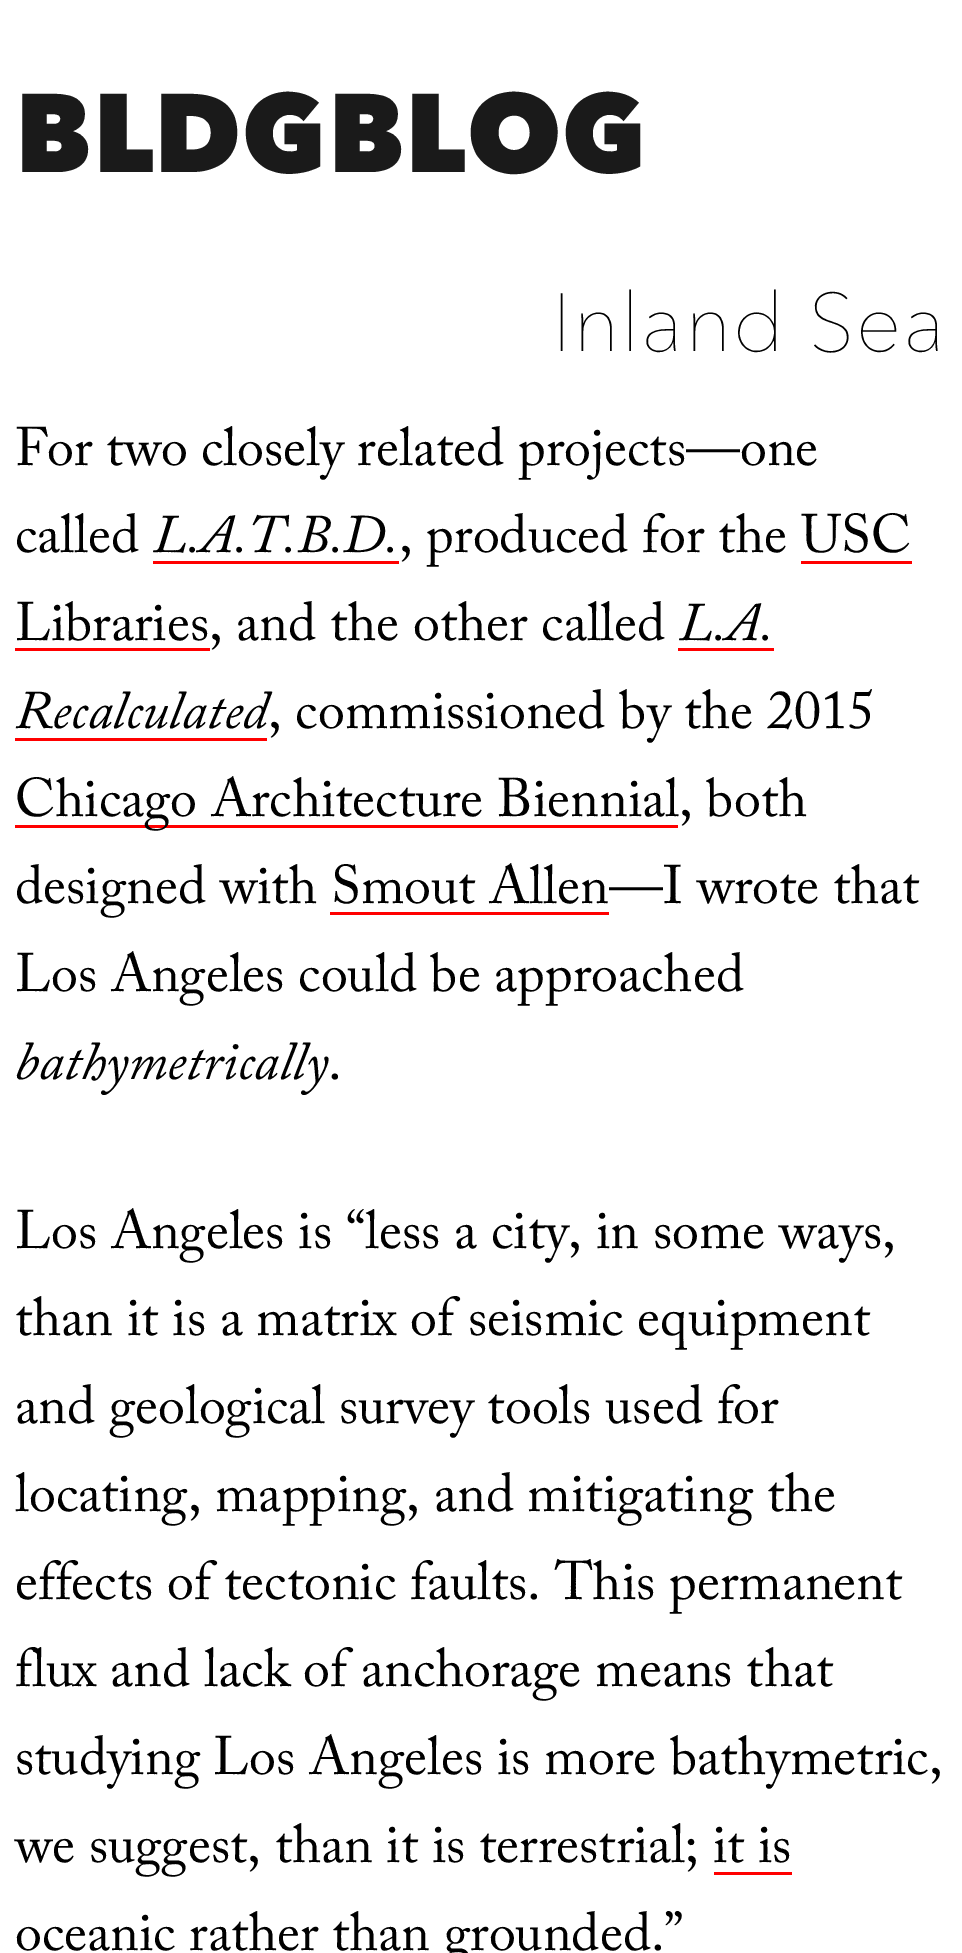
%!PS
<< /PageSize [962 1953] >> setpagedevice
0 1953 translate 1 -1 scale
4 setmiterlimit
1 setgray
0 0 962 1953 rectfill
/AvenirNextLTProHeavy-Black [110.5 0 0 -110.5 0 0] selectfont
0.102 setgray
15 172 moveto 1 0 (BLDGBLOG) ashow
/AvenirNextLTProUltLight-Light [81.5 0 0 -81.5 0 0] selectfont
0 setgray
552 351 moveto 1.75 0 (Inland Sea) ashow
/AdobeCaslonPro-Regular [54 0 0 -54 0 0] selectfont
15 465 moveto (For two closely related projects—one) show
15 552 moveto (called) show
/AdobeCaslonPro-Italic [54 0 0 -54 0 0] selectfont
153 552 moveto (L.A.T.B.D.) show
1 0 0 setrgbcolor
153 561 246 3 rectfill
/AdobeCaslonPro-Regular [54 0 0 -54 0 0] selectfont
0 setgray
399 552 moveto (, produced for the USC) show
1 0 0 setrgbcolor
15 648 195 3 rectfill
0 setgray
15 640 moveto (Libraries, and the other called) show
1 0 0 setrgbcolor
801 561 111 3 rectfill
/AdobeCaslonPro-Italic [54 0 0 -54 0 0] selectfont
0 setgray
679 640 moveto (L.A.) show
1 0 0 setrgbcolor
678 648 96 3 rectfill
0 setgray
15 728 moveto (Recalculated) show
1 0 0 setrgbcolor
15 738 252 3 rectfill
/AdobeCaslonPro-Regular [54 0 0 -54 0 0] selectfont
0 setgray
268 728 moveto (, commissioned by the 2015) show
1 0 0 setrgbcolor
15 825 663 3 rectfill
0 setgray
15 816 moveto (Chicago Architecture Biennial, both) show
15 903 moveto (designed with Smout Allen—I wrote that) show
1 0 0 setrgbcolor
330 912 279 3 rectfill
0 setgray
15 991 moveto (Los Angeles could be approached) show
/AdobeCaslonPro-Italic [54 0 0 -54 0 0] selectfont
15 1079 moveto (bathymetrically) show
/AdobeCaslonPro-Regular [54 0 0 -54 0 0] selectfont
328 1079 moveto (.) show
15 1248 moveto (Los Angeles is “less a city, in some ways,) show
15 1335 moveto (than it is a matrix of seismic equipment) show
15 1423 moveto (and geological survey tools used for) show
15 1511 moveto (locating, mapping, and mitigating the) show
15 1599 moveto (effects of tectonic faults. This permanent) show
15 1686 moveto (flux and lack of anchorage means that) show
15 1774 moveto (studying Los Angeles is more bathymetric,) show
15 1862 moveto (we suggest, than it is terrestrial; it is) show
15 1950 moveto (oceanic rather than grounded.”) show
1 0 0 setrgbcolor
714 1872 78 3 rectfill
showpage
